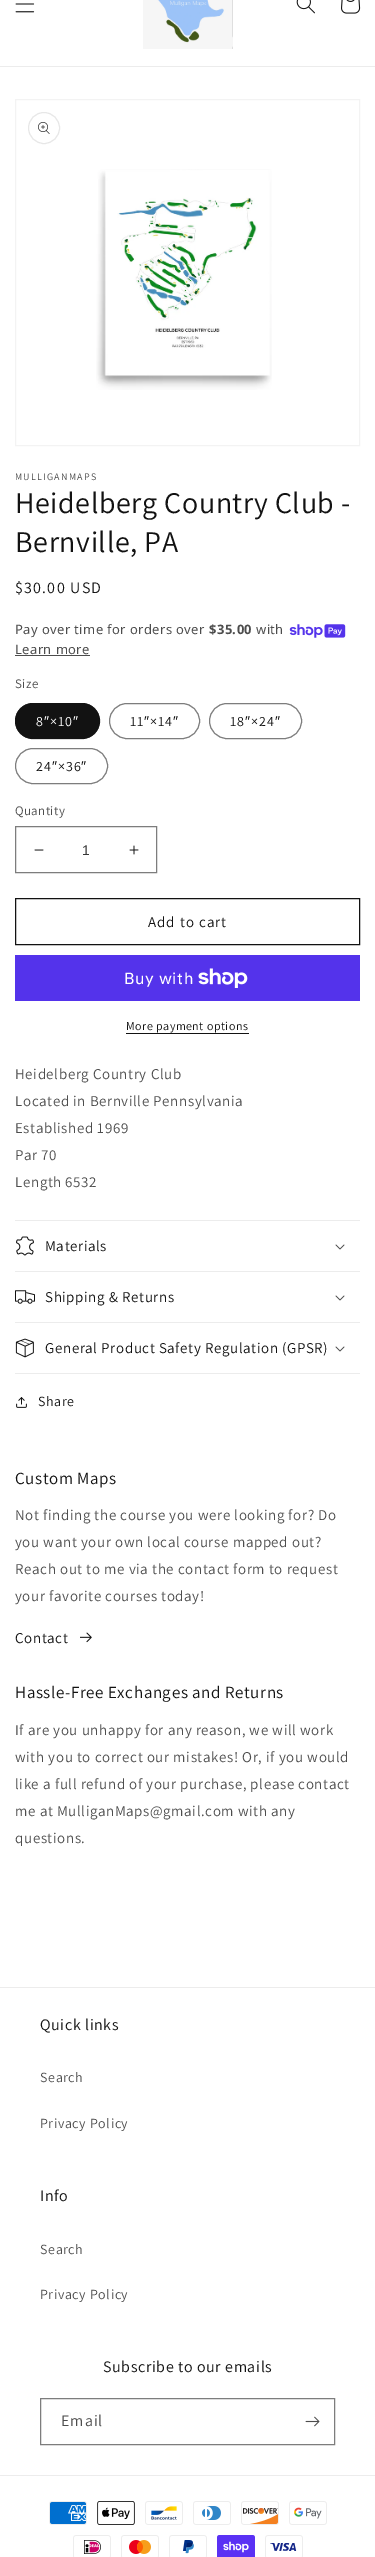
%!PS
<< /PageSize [375 2557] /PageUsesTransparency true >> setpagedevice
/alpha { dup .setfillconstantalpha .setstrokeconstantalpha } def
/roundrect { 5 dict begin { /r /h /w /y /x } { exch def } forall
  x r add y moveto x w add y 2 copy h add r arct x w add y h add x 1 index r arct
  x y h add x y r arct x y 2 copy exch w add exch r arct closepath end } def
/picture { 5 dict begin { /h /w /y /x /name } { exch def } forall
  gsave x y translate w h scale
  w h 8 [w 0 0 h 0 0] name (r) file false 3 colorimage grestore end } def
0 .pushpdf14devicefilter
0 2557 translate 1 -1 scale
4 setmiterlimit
1 setgray
0 0 375 2557 rectfill
0.925 setgray
0 66 375 1 rectfill
(img1.rgb) 15 3 20 10 picture
(img2.rgb) 143 0 90 49 picture
(img3.rgb) 296 0 19 14 picture
(img4.rgb) 341 0 20 14 picture
0.953 setgray
15.5 99.5 344 346 rectstroke
(img5.rgb) 96 169 176 221 picture
0.906 setgray
newpath 44 128 15.5 0 360 arc closepath stroke
(img6.rgb) 38 122 12 12 picture
/Assistant-Regular [10 0 0 -10 0 0] selectfont
0.302 setgray
15 480 moveto 1.25 0 (MULLIGANMAPS) ashow
/Assistant-Regular [30 0 0 -30 0 0] selectfont
0.071 setgray
15 513 moveto 0.6 0 (Heidelberg Country Club -) ashow
15 552 moveto 0.6 0 (Bernville, PA) ashow
/Assistant-Regular [16 0 0 -16 0 0] selectfont
15 593 moveto 1.25 0 ($30.00 USD) ashow
/NotoSans-Regular [13 0 0 -13 0 0] selectfont
0.302 setgray
15 634 moveto 0.4 0 (Pay over time for orders over) ashow
/NotoSans-Bold [13 0 0 -13 0 0] selectfont
209 634 moveto 0.4 0 ($35.00) ashow
/NotoSans-Regular [13 0 0 -13 0 0] selectfont
256 634 moveto 0.4 0 (with) ashow
(img7.rgb) 289 624 57 14 picture
15 654 moveto 0.4 0 (Learn more) ashow
15 655 75 1 rectfill
/Assistant-Regular [13 0 0 -13 0 0] selectfont
15 688 moveto 0.4 0 (Size) ashow
0.071 setgray
15 703 85 36 18 roundrect fill
0.55 alpha
15.5 703.5 84 35 17.5 roundrect stroke
/Assistant-Regular [14 0 0 -14 0 0] selectfont
1 alpha
1 setgray
36 726 moveto 1 0 (8) ashow
/LiberationSans-Regular [14 0 0 -14 0 0] selectfont
44 726 moveto 1 0 (″) ashow
/Assistant-Regular [14 0 0 -14 0 0] selectfont
50 726 moveto 1 0 (×10) ashow
/LiberationSans-Regular [14 0 0 -14 0 0] selectfont
73 726 moveto 1 0 (″) ashow
0.49 setgray
109.5 703.5 90 35 17.5 roundrect stroke
/Assistant-Regular [14 0 0 -14 0 0] selectfont
0.071 setgray
130 726 moveto 1 0 (11) ashow
/LiberationSans-Regular [14 0 0 -14 0 0] selectfont
144 726 moveto 1 0 (″) ashow
/Assistant-Regular [14 0 0 -14 0 0] selectfont
150 726 moveto 1 0 (×14) ashow
/LiberationSans-Regular [14 0 0 -14 0 0] selectfont
173 726 moveto 1 0 (″) ashow
0.49 setgray
209.5 703.5 92 35 17.5 roundrect stroke
/Assistant-Regular [14 0 0 -14 0 0] selectfont
0.071 setgray
230 726 moveto 1 0 (18) ashow
/LiberationSans-Regular [14 0 0 -14 0 0] selectfont
245 726 moveto 1 0 (″) ashow
/Assistant-Regular [14 0 0 -14 0 0] selectfont
251 726 moveto 1 0 (×24) ashow
/LiberationSans-Regular [14 0 0 -14 0 0] selectfont
275 726 moveto 1 0 (″) ashow
0.49 setgray
15.5 748.5 92 35 17.5 roundrect stroke
/Assistant-Regular [14 0 0 -14 0 0] selectfont
0.071 setgray
36 771 moveto 1 0 (24) ashow
/LiberationSans-Regular [14 0 0 -14 0 0] selectfont
52 771 moveto 1 0 (″) ashow
/Assistant-Regular [14 0 0 -14 0 0] selectfont
58 771 moveto 1 0 (×36) ashow
/LiberationSans-Regular [14 0 0 -14 0 0] selectfont
81 771 moveto 1 0 (″) ashow
/Assistant-Regular [13 0 0 -13 0 0] selectfont
0.302 setgray
15 815 moveto 0.4 0 (Quantity) ashow
(img8.rgb) 34 849 10 2 picture
(img9.rgb) 129 845 10 10 picture
0.49 setgray
15.5 826.5 141 46 rectstroke
/LiberationSans-Regular [14 0 0 -14 0 0] selectfont
0.212 setgray
82 855 moveto (1) show
0.071 setgray
15.5 898.5 344 46 rectstroke
/Assistant-Regular [15 0 0 -15 0 0] selectfont
148 927 moveto 1 0 (Add to cart) ashow
0.329 0.2 0.922 setrgbcolor
15 955 345 46 rectfill
/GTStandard-Regular [16 0 0 -16 0 0] selectfont
1 setgray
124 984 moveto 0.6 0 (Buy with) ashow
(img10.rgb) 198 968 50 20 picture
/Assistant-Regular [12 0 0 -12 0 0] selectfont
0.071 setgray
126 1030 moveto 0.5 0 (More payment options) ashow
126 1033 123 1 rectfill
/Assistant-Regular [15 0 0 -15 0 0] selectfont
0.302 setgray
15 1079 moveto 0.6 0 (Heidelberg Country Club) ashow
15 1106 moveto 0.6 0 (Located in Bernville Pennsylvania) ashow
15 1133 moveto 0.6 0 (Established 1969) ashow
15 1160 moveto 0.6 0 (Par 70) ashow
15 1187 moveto 0.6 0 (Length 6532) ashow
0.925 setgray
15 1220 345 1 rectfill
15 1271 345 1 rectfill
(img11.rgb) 16 1236 18 20 picture
0.071 setgray
45 1251 moveto 0.6 0 (Materials) ashow
(img12.rgb) 335 1244 10 6 picture
0.925 setgray
15 1322 345 1 rectfill
(img13.rgb) 15 1290 20 14 picture
0.071 setgray
45 1302 moveto 0.6 0 (Shipping & Returns) ashow
(img12.rgb) 335 1295 10 6 picture
0.925 setgray
15 1373 345 1 rectfill
(img14.rgb) 15 1338 19 20 picture
0.071 setgray
45 1353 moveto 0.6 0 (General Product Safety Regulation \(GPSR\)) ashow
(img12.rgb) 335 1346 10 6 picture
(img15.rgb) 16 1397 11 11 picture
/Assistant-Regular [14 0 0 -14 0 0] selectfont
38 1406 moveto 0.6 0 (Share) ashow
/Assistant-Regular [17 0 0 -17 0 0] selectfont
15 1484 moveto 0.6 0 (Custom Maps) ashow
/Assistant-Regular [15 0 0 -15 0 0] selectfont
0.302 setgray
15 1520 moveto 0.6 0 (Not finding the course you were looking for? Do) ashow
15 1547 moveto 0.6 0 (you want your own local course mapped out?) ashow
15 1574 moveto 0.6 0 (Reach out to me via the contact form to request) ashow
15 1601 moveto 0.6 0 (your favorite courses today!) ashow
0.071 setgray
15 1643 moveto 0.6 0 (Contact) ashow
(img16.rgb) 80 1632 12 11 picture
/Assistant-Regular [17 0 0 -17 0 0] selectfont
15 1698 moveto 0.6 0 (Hassle-Free Exchanges and Returns) ashow
/Assistant-Regular [15 0 0 -15 0 0] selectfont
0.302 setgray
15 1735 moveto 0.6 0 (If are you unhappy for any reason, we will work) ashow
15 1762 moveto 0.6 0 (with you to correct our mistakes! Or, if you would) ashow
15 1789 moveto 0.6 0 (like a full refund of your purchase, please contact) ashow
15 1816 moveto 0.6 0 (me at MulliganMaps@gmail.com with any) ashow
15 1843 moveto 0.6 0 (questions.) ashow
0.925 setgray
0 1987 375 1 rectfill
/Assistant-Regular [16 0 0 -16 0 0] selectfont
0.071 setgray
40 2030 moveto 0.6 0 (Quick links) ashow
/Assistant-Regular [14 0 0 -14 0 0] selectfont
0.302 setgray
40 2082 moveto 0.6 0 (Search) ashow
40 2128 moveto 0.6 0 (Privacy Policy) ashow
/Assistant-Regular [16 0 0 -16 0 0] selectfont
0.071 setgray
40 2201 moveto 0.6 0 (Info) ashow
/Assistant-Regular [14 0 0 -14 0 0] selectfont
0.302 setgray
40 2254 moveto 0.6 0 (Search) ashow
40 2299 moveto 0.6 0 (Privacy Policy) ashow
/Assistant-Regular [16 0 0 -16 0 0] selectfont
0.071 setgray
103 2372 moveto 0.6 0 (Subscribe to our emails) ashow
0.49 setgray
40.5 2398.5 294 46 rectstroke
0.302 setgray
61 2426 moveto 1 0 (Email) ashow
(img17.rgb) 305 2416 15 11 picture
0.925 setgray
0 2475 375 1 rectfill
(img18.rgb) 49 2501 38 24 picture
(img19.rgb) 97 2501 38 24 picture
(img20.rgb) 145 2501 38 24 picture
(img21.rgb) 193 2501 38 24 picture
(img22.rgb) 241 2501 38 24 picture
(img23.rgb) 289 2501 38 24 picture
(img24.rgb) 73 2535 38 22 picture
(img25.rgb) 121 2535 38 22 picture
(img26.rgb) 169 2535 38 22 picture
(img27.rgb) 217 2535 38 22 picture
(img28.rgb) 265 2535 38 22 picture
.poppdf14devicefilter showpage
